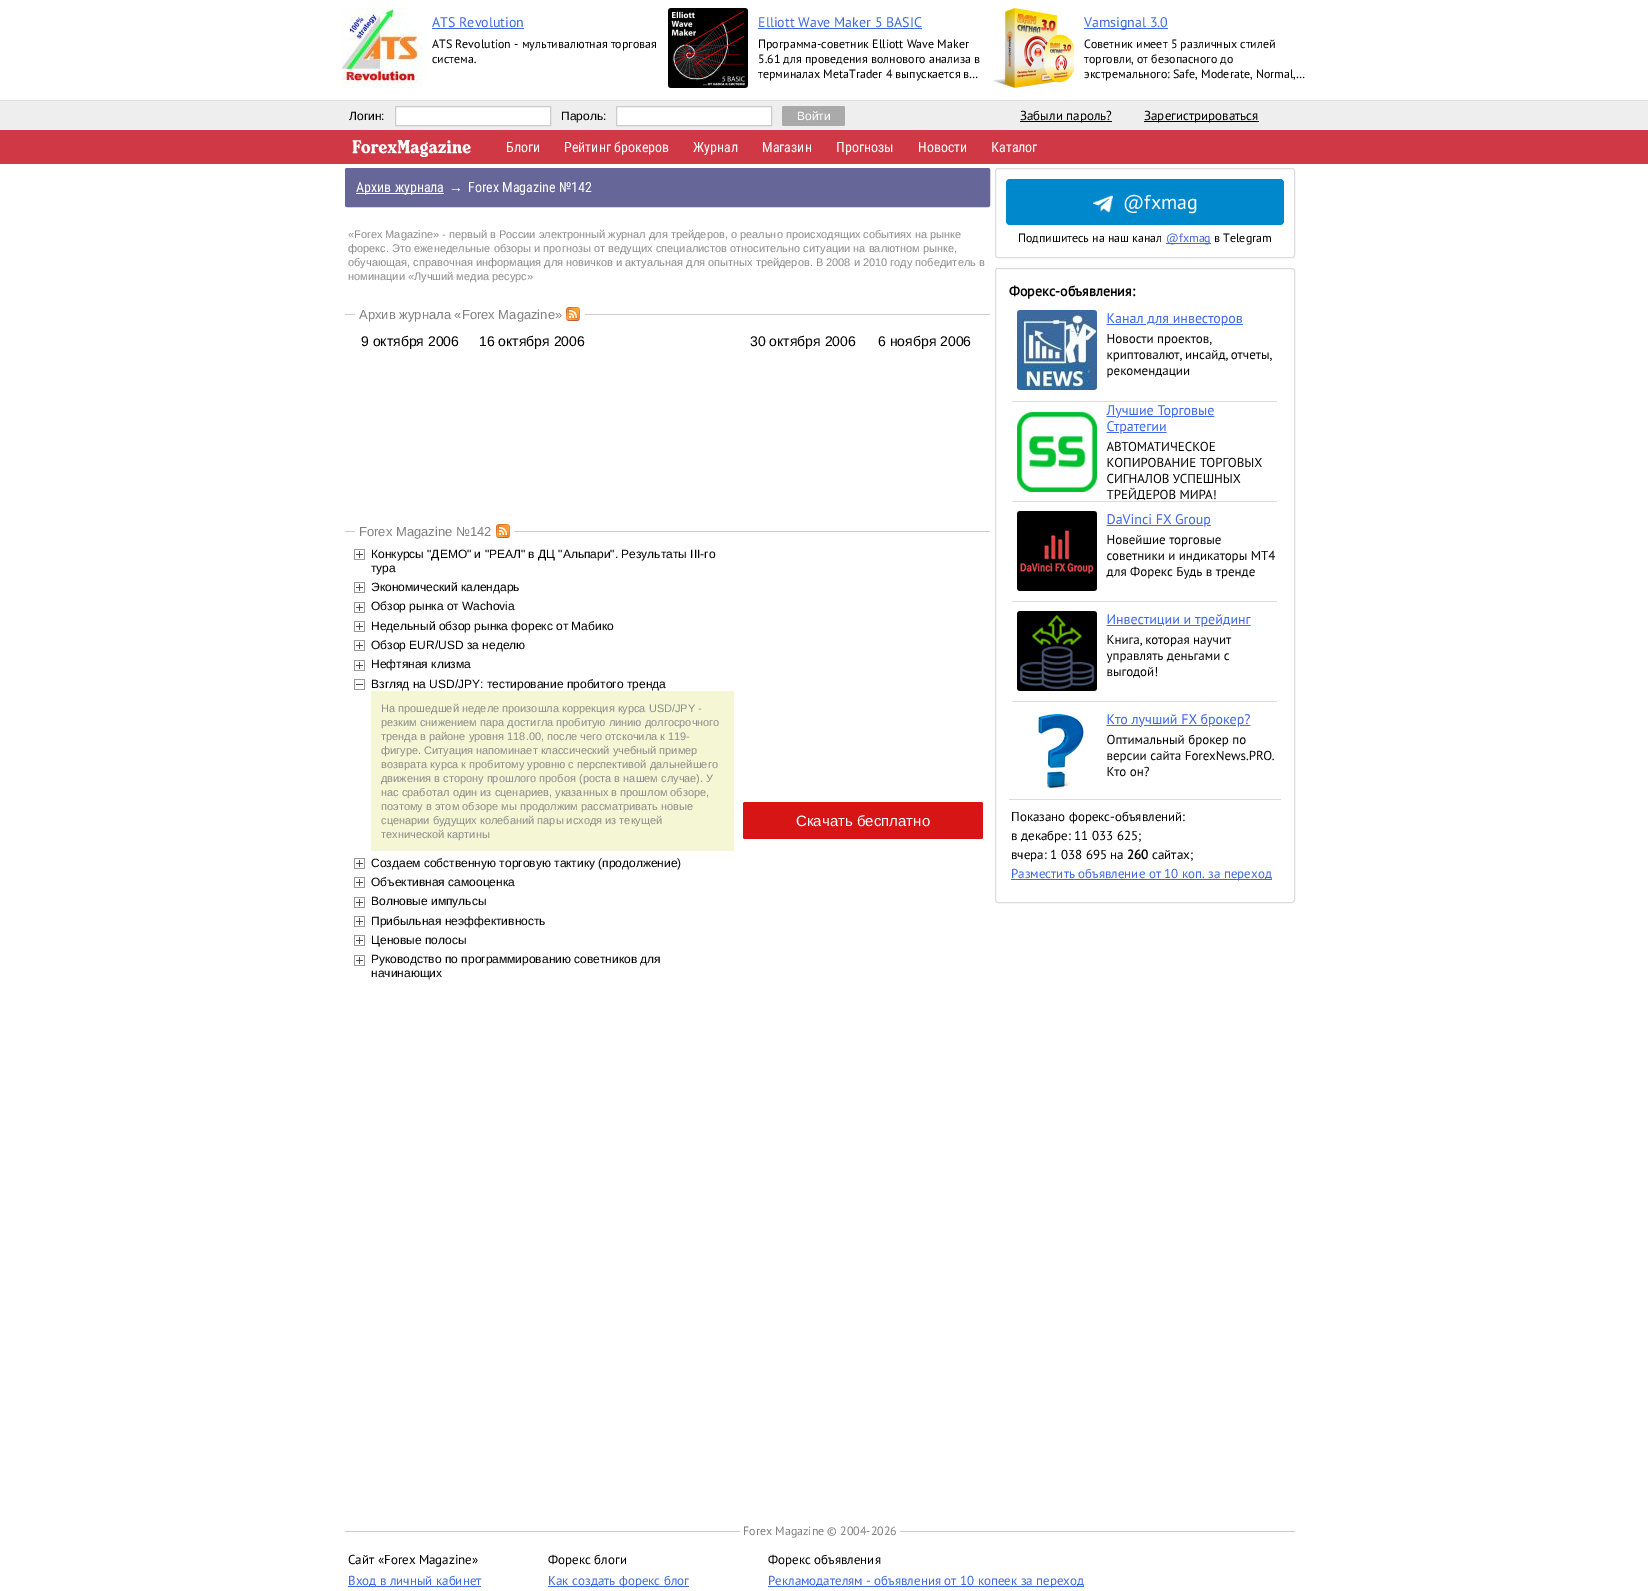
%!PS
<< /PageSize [1648 1591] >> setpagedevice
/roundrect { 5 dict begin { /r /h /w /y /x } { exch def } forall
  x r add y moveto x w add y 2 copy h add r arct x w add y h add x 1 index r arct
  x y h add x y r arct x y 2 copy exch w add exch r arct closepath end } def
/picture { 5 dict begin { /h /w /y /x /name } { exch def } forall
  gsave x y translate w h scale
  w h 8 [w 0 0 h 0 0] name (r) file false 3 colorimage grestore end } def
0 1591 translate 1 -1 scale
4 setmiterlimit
1 setgray
0 0 1648 1591 rectfill
(img1.rgb) 342 8 80 80 picture
/PTSans-Regular [14 0 0 -14 0 0] selectfont
0.255 0.412 0.882 setrgbcolor
432 27 moveto (ATS Revolution) show
432 28 92 1 rectfill
/PTSans-Regular [12 0 0 -12 0 0] selectfont
0 setgray
432 48 moveto (ATS Revolution - мультивалютная торговая) show
432 63 moveto (система.) show
(img2.rgb) 668 8 80 80 picture
/PTSans-Regular [14 0 0 -14 0 0] selectfont
0.255 0.412 0.882 setrgbcolor
758 27 moveto (Elliott Wave Maker 5 BASIC) show
758 28 164 1 rectfill
/PTSans-Regular [12 0 0 -12 0 0] selectfont
0 setgray
758 48 moveto (Программа-советник Elliott Wave Maker) show
758 63 moveto (5.61 для проведения волнового анализа в) show
758 78 moveto (терминалах MetaTrader 4 выпускается в…) show
(img3.rgb) 994 8 80 80 picture
0.255 0.412 0.882 setrgbcolor
1084 28 84 1 rectfill
/PTSans-Regular [14 0 0 -14 0 0] selectfont
1084 27 moveto (Vamsignal 3.0) show
/PTSans-Regular [12 0 0 -12 0 0] selectfont
0 setgray
1084 48 moveto (Советник имеет 5 различных стилей) show
1084 63 moveto (торговли, от безопасного до) show
1084 78 moveto (экстремального: Safe, Moderate, Normal,…) show
0.933 setgray
0 101 1648 29 rectfill
0.867 setgray
0 100 1648 1 rectfill
/LiberationSans-Regular [12 0 0 -12 0 0] selectfont
0 setgray
349 120 moveto (Логин:) show
1 setgray
newpath 395.5 106.5 moveto 550.5 106.5 lineto 550.5 125.5 lineto 395.5 125.5 lineto closepath gsave fill grestore
0.8 setgray
stroke
0 setgray
561 120 moveto (Пароль:) show
1 setgray
newpath 616.5 106.5 moveto 771.5 106.5 lineto 771.5 125.5 lineto 616.5 125.5 lineto closepath gsave fill grestore
0.8 setgray
stroke
0.667 setgray
782 106 63 20 2 roundrect fill
1 setgray
797 120 moveto (Войти) show
0 setgray
1020 121 92 1 rectfill
/PTSans-Regular [13 0 0 -13 0 0] selectfont
1020 120 moveto (Забыли пароль?) show
1144 121 115 1 rectfill
1144 120 moveto (Зарегистрироваться) show
0.812 0.22 0.267 setrgbcolor
0 130 1648 34 rectfill
(img4.rgb) 352 140 119 17 picture
/RobotoCondensed-Regular [14 0 0 -14 0 0] selectfont
1 setgray
506 152 moveto (Блоги) show
564 152 moveto (Рейтинг брокеров) show
693 152 moveto (Журнал) show
762 152 moveto (Магазин) show
836 152 moveto (Прогнозы) show
918 152 moveto (Новости) show
991 152 moveto (Каталог) show
0.4 0.4 0.6 setrgbcolor
345.5 168.5 644 38 1.5 roundrect gsave fill grestore
stroke
1 setgray
356 193 88 1 rectfill
356 192 moveto (Архив журнала) show
/LiberationSerif-Regular [14 0 0 -14 0 0] selectfont
449 192 moveto (→) show
/RobotoCondensed-Regular [14 0 0 -14 0 0] selectfont
468 192 moveto (Forex Magazine №142) show
/LiberationSans-Regular [11 0 0 -11 0 0] selectfont
0.553 setgray
348 238 moveto («Forex Magazine» - первый в России электронный журнал для трейдеров, о реально происходящих событиях на рынке) show
348 252 moveto (форекс. Это еженедельные обзоры и прогнозы от ведущих специалистов относительно ситуации на валютном рынке,) show
348 266 moveto (обучающая, справочная информация для новичков и актуальная для опытных трейдеров. В 2008 и 2010 году победитель в) show
348 280 moveto (номинации «Лучший медиа ресурс») show
0.8 setgray
345 314 645 1 rectfill
1 setgray
355 307 4 15 rectfill
359 314 203 1 rectfill
/LiberationSans-Regular [13 0 0 -13 0 0] selectfont
0.502 setgray
359 319 moveto (Архив журнала «Forex Magazine») show
1 setgray
562 307 3 15 rectfill
565 314 16 1 rectfill
581 307 4 15 rectfill
(img5.rgb) 566 307 14 14 picture
/LiberationSans-Regular [14 0 0 -14 0 0] selectfont
0 setgray
361 346 moveto (9 октября 2006) show
479 346 moveto (16 октября 2006) show
750 346 moveto (30 октября 2006) show
878 346 moveto (6 ноября 2006) show
0.8 setgray
345 531 645 1 rectfill
1 setgray
355 531 156 1 rectfill
/LiberationSans-Regular [13 0 0 -13 0 0] selectfont
0.502 setgray
359 536 moveto (Forex Magazine №142) show
1 setgray
511 524 3 15 rectfill
(img5.rgb) 496 524 14 14 picture
(img6.rgb) 354 549 11 11 picture
/LiberationSans-Regular [12 0 0 -12 0 0] selectfont
0 setgray
371 558 moveto (Конкурсы "ДЕМО" и "РЕАЛ" в ДЦ "Альпари". Результаты III-го) show
371 572 moveto (тура) show
(img6.rgb) 354 582 11 11 picture
371 591 moveto (Экономический календарь) show
(img6.rgb) 354 602 11 11 picture
371 610 moveto (Обзор рынка от Wachovia) show
(img6.rgb) 354 621 11 11 picture
371 630 moveto (Недельный обзор рынка форекс от Мабико) show
(img6.rgb) 354 640 11 11 picture
371 649 moveto (Обзор EUR/USD за неделю) show
(img6.rgb) 354 660 11 11 picture
371 668 moveto (Нефтяная клизма) show
(img7.rgb) 354 679 11 11 picture
371 688 moveto (Взгляд на USD/JPY: тестирование пробитого тренда) show
0.961 0.965 0.827 setrgbcolor
371 691 363 160 rectfill
/LiberationSans-Regular [11 0 0 -11 0 0] selectfont
0.553 setgray
381 712 moveto (На прошедшей неделе произошла коррекция курса USD/JPY -) show
381 726 moveto (резким снижением пара достигла пробитую линию долгосрочного) show
381 740 moveto (тренда в районе уровня 118.00, после чего отскочила к 119-) show
381 754 moveto (фигуре. Ситуация напоминает классический учебный пример) show
381 768 moveto (возврата курса к пробитому уровню с перспективой дальнейшего) show
381 782 moveto (движения в сторону прошлого пробоя \(роста в нашем случае\). У) show
381 796 moveto (нас сработал один из сценариев, указанных в прошлом обзоре,) show
381 810 moveto (поэтому в этом обзоре мы продолжим рассматривать новые) show
381 824 moveto (сценарии будущих колебаний пары исходя из текущей) show
381 838 moveto (технической картины) show
(img6.rgb) 354 858 11 11 picture
/LiberationSans-Regular [12 0 0 -12 0 0] selectfont
0 setgray
371 867 moveto (Создаем собственную торговую тактику \(продолжение\)) show
(img6.rgb) 354 877 11 11 picture
371 886 moveto (Объективная самооценка) show
(img6.rgb) 354 897 11 11 picture
371 905 moveto (Волновые импульсы) show
(img6.rgb) 354 916 11 11 picture
371 925 moveto (Прибыльная неэффективность) show
(img6.rgb) 354 935 11 11 picture
371 944 moveto (Ценовые полосы) show
(img6.rgb) 354 955 11 11 picture
371 963 moveto (Руководство по программированию советников для) show
371 977 moveto (начинающих) show
0.847 0.082 0.082 setrgbcolor
743 802 240 37 2 roundrect fill
/LiberationSans-Regular [15 0 0 -15 0 0] selectfont
1 setgray
796 826 moveto (Скачать бесплатно) show
0.867 setgray
995.5 168.5 299 89 2.5 roundrect stroke
0 0.533 0.8 setrgbcolor
1006 179 278 46 4 roundrect fill
(img8.rgb) 1093 195 20 18 picture
/PTSans-Regular [20 0 0 -20 0 0] selectfont
1 setgray
1123 209 moveto (@fxmag) show
/PTSans-Regular [12 0 0 -12 0 0] selectfont
0 setgray
1018 242 moveto (Подпишитесь на наш канал) show
0.255 0.412 0.882 setrgbcolor
1166 243 45 1 rectfill
1166 242 moveto (@fxmag) show
0 setgray
1214 242 moveto (в Telegram) show
0.867 setgray
995.5 268.5 299 634 2.5 roundrect stroke
/PTSans-Bold [14 0 0 -14 0 0] selectfont
0 setgray
1009 296 moveto (Форекс-объявления:) show
(img9.rgb) 1012 310 265 479 picture
0.867 setgray
1009 799 272 1 rectfill
/PTSans-Regular [13 0 0 -13 0 0] selectfont
0 setgray
1011 821 moveto (Показано форекс-объявлений:) show
1011 840 moveto (в декабре: 11 033 625;) show
1011 859 moveto (вчера: 1 038 695 на) show
/PTSans-Bold [13 0 0 -13 0 0] selectfont
1127 859 moveto (260) show
/PTSans-Regular [13 0 0 -13 0 0] selectfont
1152 859 moveto (сайтах;) show
0.255 0.412 0.882 setrgbcolor
1011 879 261 1 rectfill
1011 878 moveto (Разместить объявление от 10 коп. за переход) show
0.8 setgray
345 1531 950 1 rectfill
1 setgray
740 1531 160 1 rectfill
/PTSans-Regular [12 0 0 -12 0 0] selectfont
0.502 setgray
743 1535 moveto (Forex Magazine © 2004-2026) show
/PTSans-Regular [13 0 0 -13 0 0] selectfont
0 setgray
348 1564 moveto (Сайт «Forex Magazine») show
0.255 0.412 0.882 setrgbcolor
348 1586 133 1 rectfill
348 1585 moveto (Вход в личный кабинет) show
0 setgray
548 1564 moveto (Форекс блоги) show
0.255 0.412 0.882 setrgbcolor
548 1586 141 1 rectfill
548 1585 moveto (Как создать форекс блог) show
0 setgray
768 1564 moveto (Форекс объявления) show
0.255 0.412 0.882 setrgbcolor
768 1586 316 1 rectfill
768 1585 moveto (Рекламодателям - объявления от 10 копеек за переход) show
showpage
